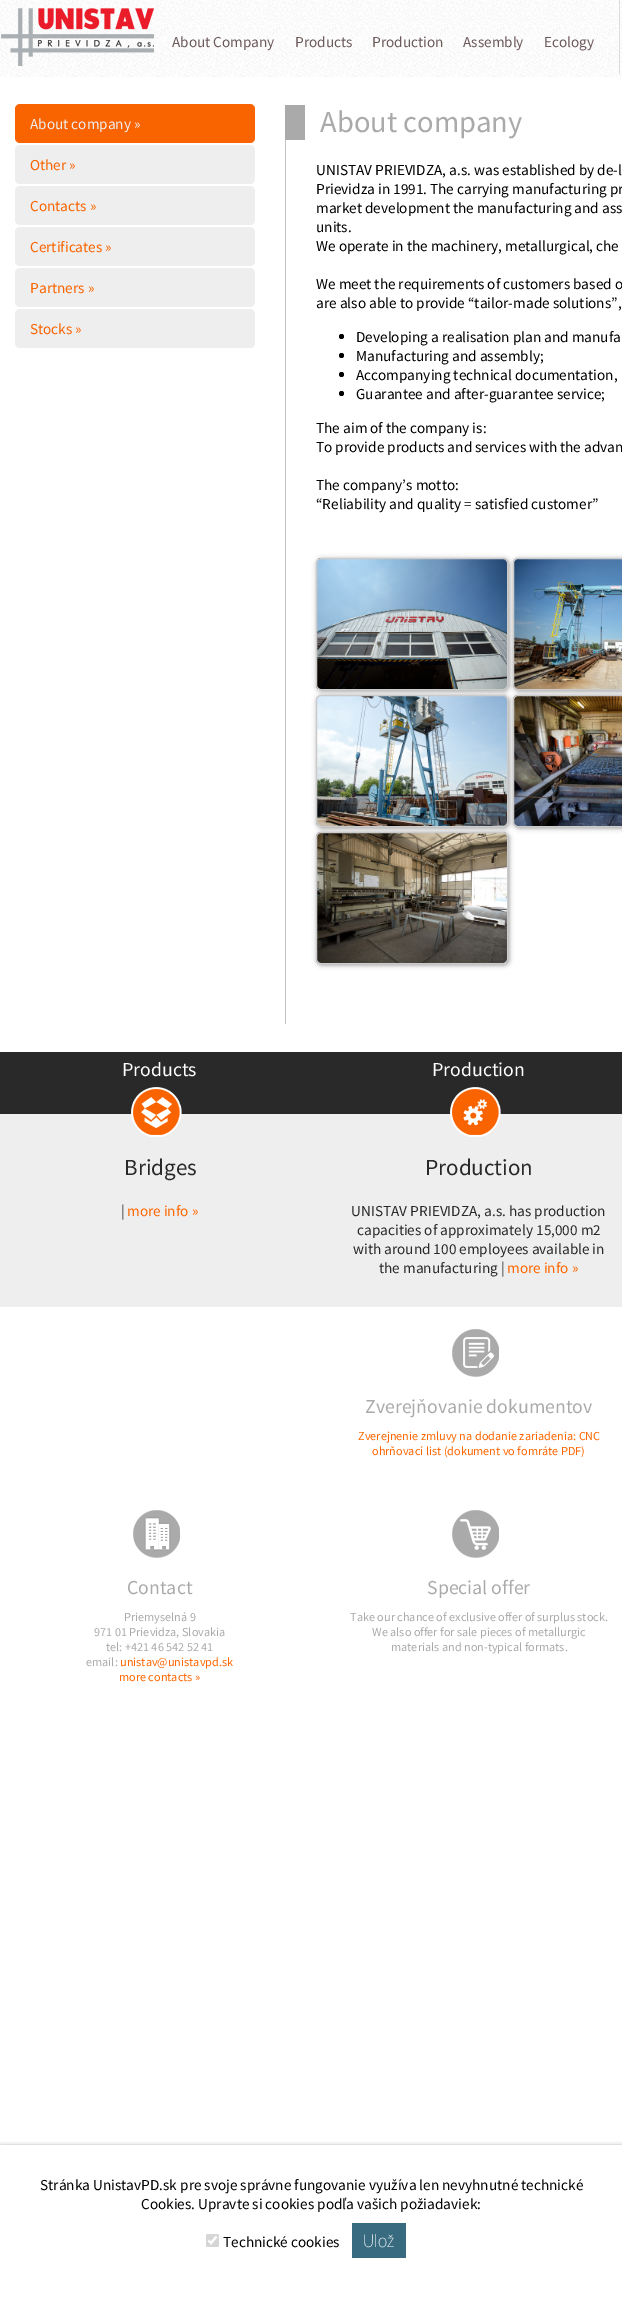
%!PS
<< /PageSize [622 2298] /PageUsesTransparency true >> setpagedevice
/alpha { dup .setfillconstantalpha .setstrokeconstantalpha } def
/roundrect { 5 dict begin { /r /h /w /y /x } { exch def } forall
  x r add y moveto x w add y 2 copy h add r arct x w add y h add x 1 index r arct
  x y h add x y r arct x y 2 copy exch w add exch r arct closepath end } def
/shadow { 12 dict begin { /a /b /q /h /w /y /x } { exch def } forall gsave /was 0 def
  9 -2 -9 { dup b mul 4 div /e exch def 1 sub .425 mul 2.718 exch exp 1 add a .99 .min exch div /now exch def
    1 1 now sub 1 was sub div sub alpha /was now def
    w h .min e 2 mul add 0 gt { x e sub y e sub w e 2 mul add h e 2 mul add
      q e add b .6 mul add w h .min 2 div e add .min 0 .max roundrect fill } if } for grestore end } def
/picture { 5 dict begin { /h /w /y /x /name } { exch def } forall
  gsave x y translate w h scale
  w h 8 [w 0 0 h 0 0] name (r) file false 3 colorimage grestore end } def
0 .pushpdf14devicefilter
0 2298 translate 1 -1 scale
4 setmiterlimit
1 setgray
0 0 622 2298 rectfill
(img1.rgb) 0 0 622 77 picture
(img2.rgb) 1 8 153 58 picture
/SourceSansPro-Regular [15.2 0 0 -15.2 0 0] selectfont
0.424 0.349 0.349 setrgbcolor
172 47 moveto (About Company) show
295 47 moveto (Products) show
372 47 moveto (Production) show
463 47 moveto (Assembly) show
544 47 moveto (Ecology) show
0.867 setgray
619 0 1 74 rectfill
0.976 0.388 0 setrgbcolor
15 104 240 39 5 roundrect fill
0.933 setgray
30 129 moveto (About company ») show
15 145 240 39 5 roundrect fill
0.976 0.388 0 setrgbcolor
30 170 moveto (Other ») show
0.933 setgray
15 186 240 39 5 roundrect fill
0.976 0.388 0 setrgbcolor
30 211 moveto (Contacts ») show
0.933 setgray
15 227 240 39 5 roundrect fill
0.976 0.388 0 setrgbcolor
30 252 moveto (Certificates ») show
0.933 setgray
15 268 240 39 5 roundrect fill
0.976 0.388 0 setrgbcolor
30 293 moveto (Partners ») show
0.933 setgray
15 309 240 39 5 roundrect fill
0.976 0.388 0 setrgbcolor
30 334 moveto (Stocks ») show
0.667 setgray
285 105 20 35 rectfill
/SourceSansPro-Regular [30.5 0 0 -30.5 0 0] selectfont
320 132 moveto (About company) show
0.765 setgray
285 140 1 884 rectfill
/SourceSansPro-Regular [15.2 0 0 -15.2 0 0] selectfont
0 setgray
316 175 moveto (UNISTAV PRIEVIDZA, a.s. was established by de-l) show
316 194 moveto (Prievidza in 1991. The carrying manufacturing pr) show
316 213 moveto (market development the manufacturing and ass) show
316 232 moveto (units.) show
316 251 moveto (We operate in the machinery, metallurgical, che) show
316 289 moveto (We meet the requirements of customers based o) show
316 308 moveto (are also able to provide “tailor-made solutions”,) show
newpath 341.5 336.5 2.5 0 360 arc closepath fill
356 342 moveto (Developing a realisation plan and manufa) show
newpath 341.5 355.5 2.5 0 360 arc closepath fill
356 361 moveto (Manufacturing and assembly;) show
newpath 341.5 374.5 2.5 0 360 arc closepath fill
356 380 moveto (Accompanying technical documentation,) show
newpath 341.5 393.5 2.5 0 360 arc closepath fill
356 399 moveto (Guarantee and after-guarantee service;) show
316 433 moveto (The aim of the company is:) show
316 452 moveto (To provide products and services with the advan) show
316 490 moveto (The company’s motto:) show
316 509 moveto (“Reliability and quality = satisfied customer”) show
0.58 setgray
317 559 192 132 5 2.5 1 shadow
(img3.rgb) 316 558 192 132 picture
0.796 setgray
316.5 558.5 191 131 4.5 roundrect stroke
0.58 setgray
514 559 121 132 5 2.5 1 shadow
(img4.rgb) 513 558 109 132 picture
0.796 setgray
513.5 558.5 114 131 4.5 roundrect stroke
0.58 setgray
317 696 192 132 5 2.5 1 shadow
(img5.rgb) 316 695 192 132 picture
0.796 setgray
316.5 695.5 191 131 4.5 roundrect stroke
0.58 setgray
514 696 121 132 5 2.5 1 shadow
(img6.rgb) 513 695 109 132 picture
0.796 setgray
513.5 695.5 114 131 4.5 roundrect stroke
0.58 setgray
317 833 192 132 5 2.5 1 shadow
(img7.rgb) 316 832 192 132 picture
0.796 setgray
316.5 832.5 191 131 4.5 roundrect stroke
0.933 setgray
0 1114 622 193 rectfill
0.161 setgray
0 1052 622 62 rectfill
/SourceSansPro-Regular [19.75 0 0 -19.75 0 0] selectfont
1 setgray
122 1076 moveto (Products) show
(img8.rgb) 131 1087 51 50 picture
/SourceSansPro-Regular [23 0 0 -23 0 0] selectfont
0.161 setgray
124 1175 moveto (Bridges) show
/SourceSansPro-Regular [15.2 0 0 -15.2 0 0] selectfont
121 1216 moveto (|) show
1 0.4 0 setrgbcolor
127 1216 moveto (more info ») show
/SourceSansPro-Regular [19.75 0 0 -19.75 0 0] selectfont
1 setgray
432 1076 moveto (Production) show
(img9.rgb) 450 1087 51 50 picture
/SourceSansPro-Regular [23 0 0 -23 0 0] selectfont
0.161 setgray
425 1175 moveto (Production) show
/SourceSansPro-Regular [15.2 0 0 -15.2 0 0] selectfont
351 1216 moveto (UNISTAV PRIEVIDZA, a.s. has production) show
357 1235 moveto (capacities of approximately 15,000 m2) show
353 1254 moveto (with around 100 employees available in) show
379 1273 moveto (the manufacturing |) show
1 0.4 0 setrgbcolor
507 1273 moveto (more info ») show
(img10.rgb) 452 1329 47 48 picture
/SourceSansPro-Regular [19.75 0 0 -19.75 0 0] selectfont
0.667 setgray
365 1413 moveto (Zverejňovanie dokumentov) show
/SourceSansPro-Regular [12.2 0 0 -12.2 0 0] selectfont
1 0.4 0 setrgbcolor
358 1440 moveto (Zverejnenie zmluvy na dodanie zariadenia: CNC) show
372 1455 moveto (ohrňovací list \(dokument vo fomráte PDF\)) show
(img11.rgb) 133 1510 47 48 picture
/SourceSansPro-Regular [19.75 0 0 -19.75 0 0] selectfont
0.667 setgray
127 1594 moveto (Contact) show
/SourceSansPro-Regular [12.2 0 0 -12.2 0 0] selectfont
124 1621 moveto (Priemyselná 9) show
94 1636 moveto (971 01 Prievidza, Slovakia) show
106 1651 moveto (tel: +421 46 542 52 41) show
86 1666 moveto (email:) show
1 0.4 0 setrgbcolor
120 1666 moveto (unistav@unistavpd.sk) show
119 1681 moveto (more contacts ») show
(img12.rgb) 452 1510 47 48 picture
/SourceSansPro-Regular [19.75 0 0 -19.75 0 0] selectfont
0.667 setgray
427 1594 moveto (Special offer) show
/SourceSansPro-Regular [12.2 0 0 -12.2 0 0] selectfont
350 1621 moveto (Take our chance of exclusive offer of surplus stock.) show
372 1636 moveto (We also offer for sale pieces of metallurgic) show
391 1651 moveto (materials and non-typical formats.) show
gsave
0 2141 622 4 rectclip
0.58 setgray
1 2146 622 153 0 2.5 1 shadow
grestore
/SourceSansPro-Regular [15.2 0 0 -15.2 0 0] selectfont
0 setgray
40 2190 moveto (Stránka UnistavPD.sk pre svoje správne fungovanie využíva len nevyhnutné technické) show
141 2209 moveto (Cookies. Upravte si cookies podľa vašich požiadaviek:) show
0.839 setgray
206 2234 13 13 2 roundrect fill
1 setgray
2.1 setlinewidth
newpath 208.5 2240.5 moveto 211 2243 lineto 216.5 2236.5 lineto stroke
0 setgray
223 2247 moveto (Technické cookies) show
0.22 0.42 0.502 setrgbcolor
352 2223 54 35 rectfill
/Thasadith-Regular [18 0 0 -18 0 0] selectfont
1 setgray
363 2247 moveto (Ulož) show
.poppdf14devicefilter showpage
